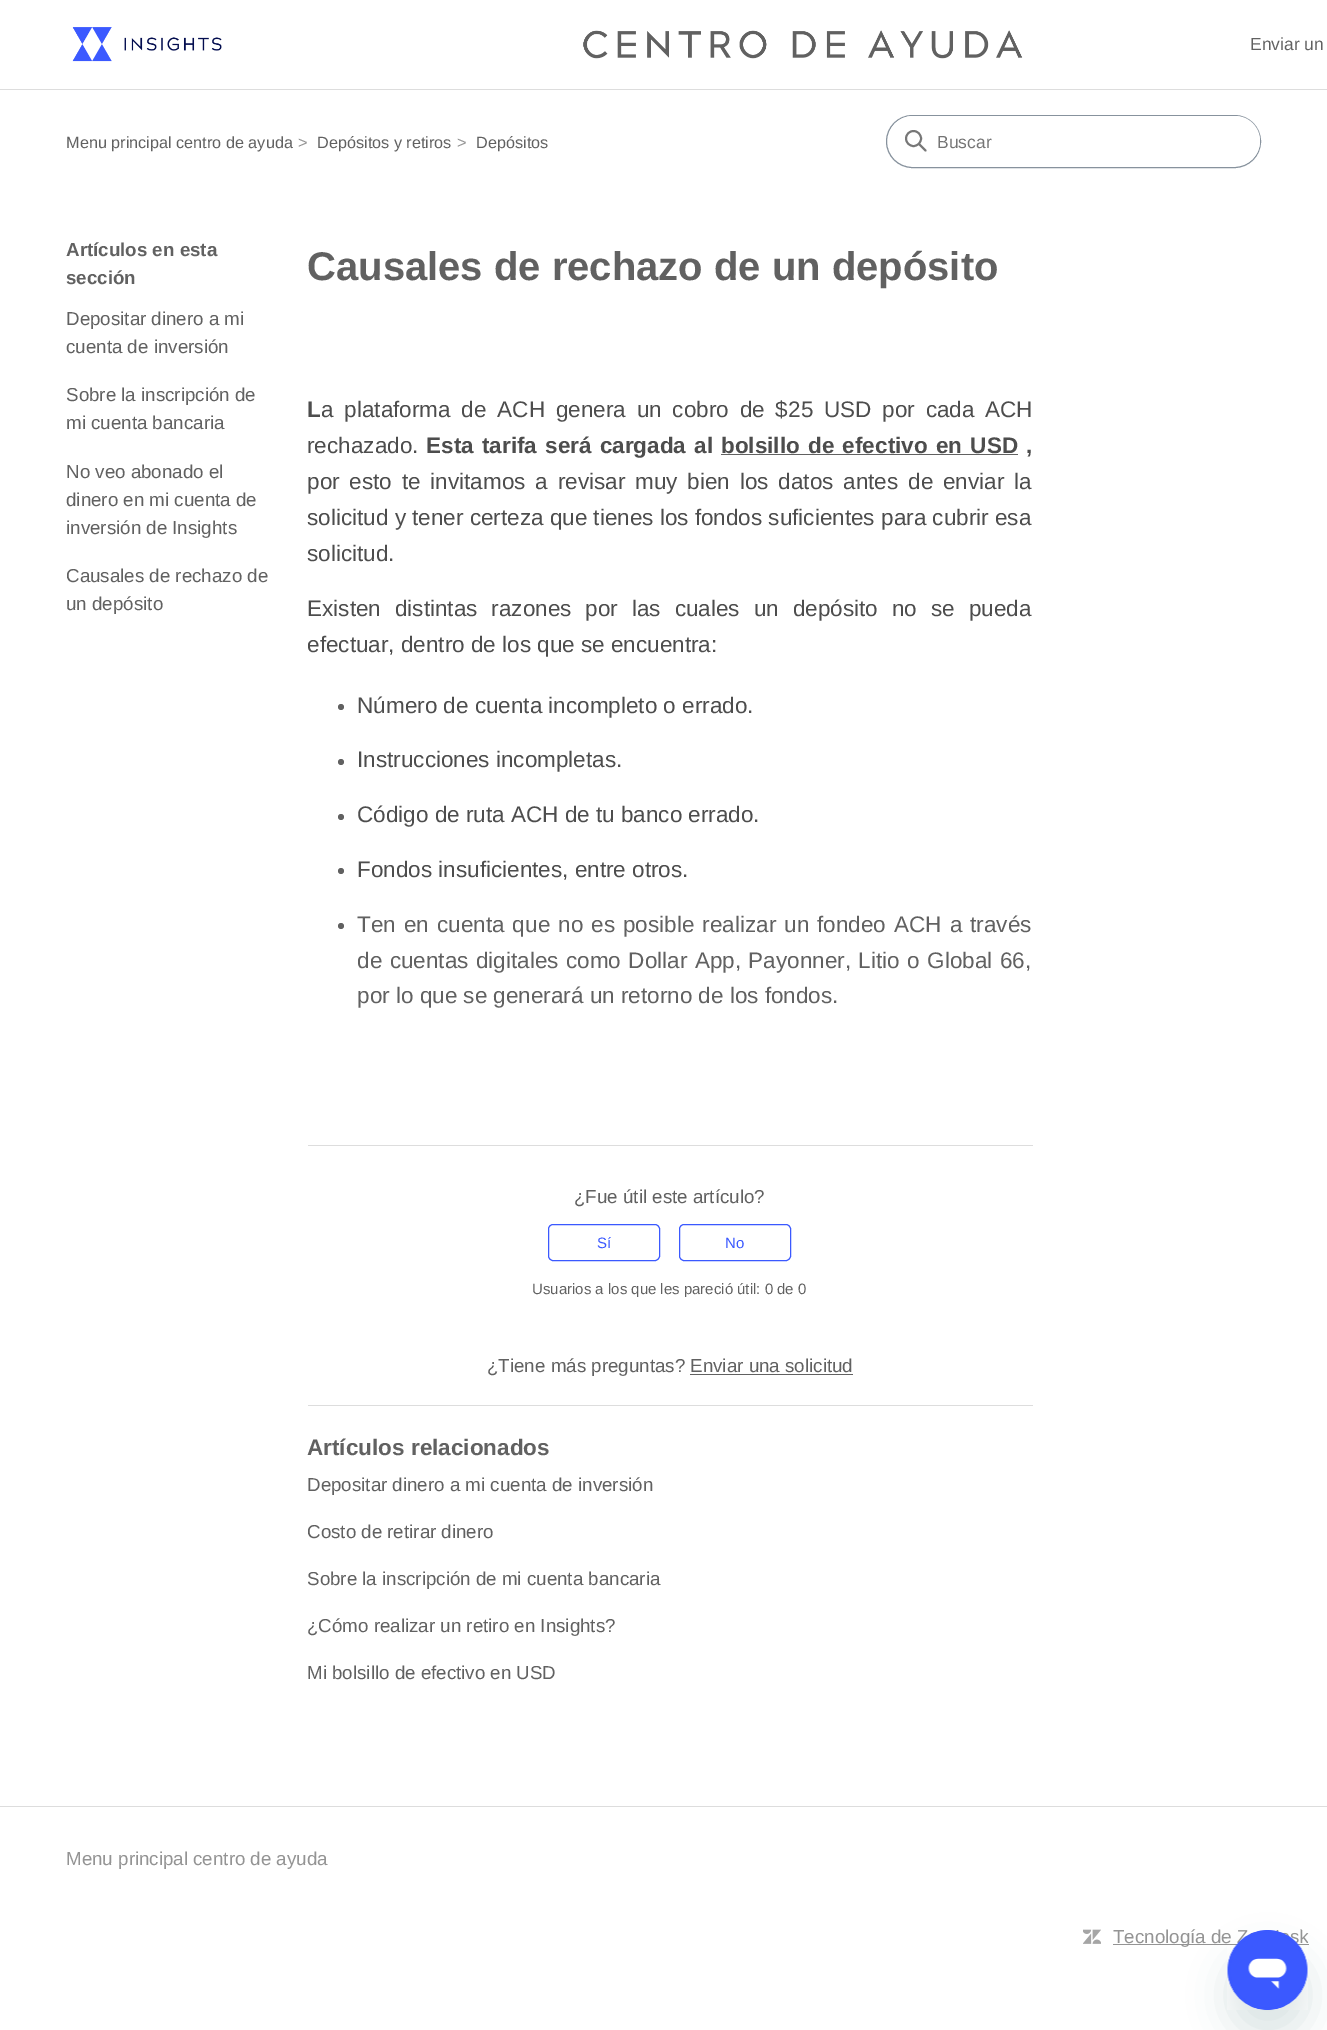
%!PS
<< /PageSize [1327 2030] /PageUsesTransparency true >> setpagedevice
/alpha { dup .setfillconstantalpha .setstrokeconstantalpha } def
/roundrect { 5 dict begin { /r /h /w /y /x } { exch def } forall
  x r add y moveto x w add y 2 copy h add r arct x w add y h add x 1 index r arct
  x y h add x y r arct x y 2 copy exch w add exch r arct closepath end } def
/shadow { 12 dict begin { /a /b /q /h /w /y /x } { exch def } forall gsave /was 0 def
  9 -2 -9 { dup b mul 4 div /e exch def 1 sub .425 mul 2.718 exch exp 1 add a .99 .min exch div /now exch def
    1 1 now sub 1 was sub div sub alpha /was now def
    w h .min e 2 mul add 0 gt { x e sub y e sub w e 2 mul add h e 2 mul add
      q e add b .6 mul add w h .min 2 div e add .min 0 .max roundrect fill } if } for grestore end } def
/picture { 5 dict begin { /h /w /y /x /name } { exch def } forall
  gsave x y translate w h scale
  w h 8 [w 0 0 h 0 0] name (r) file false 3 colorimage grestore end } def
0 .pushpdf14devicefilter
0 2030 translate 1 -1 scale
4 setmiterlimit
1 setgray
0 0 1327 2030 rectfill
(img1.rgb) 72 27 951 35 picture
/LiberationSans-Regular [17.5 0 0 -17.5 0 0] selectfont
0.38 setgray
1250 50 moveto (Enviar un) show
0.867 setgray
0 89 1327 1 rectfill
/LiberationSans-Regular [16.25 0 0 -16.25 0 0] selectfont
0.38 setgray
66 148 moveto (Menu principal centro de ayuda) show
0.58 setgray
298 148 moveto (>) show
0.38 setgray
317 148 moveto (Depósitos y retiros) show
0.58 setgray
457 148 moveto (>) show
0.38 setgray
476 148 moveto (Depósitos) show
0.529 0.573 0.616 setrgbcolor
886.5 115.5 374 52 26 roundrect stroke
1 setgray
888 116 372 50 25 roundrect fill
0.467 setgray
1.9 setlinewidth
newpath 913.5 138.5 7.5 0 360 arc closepath stroke
1 setlinecap
newpath 925.5 150.5 moveto 919 144 lineto stroke
/LiberationSans-Regular [17.5 0 0 -17.5 0 0] selectfont
0.459 setgray
937 148 moveto (Buscar) show
/LiberationSans-Bold [18.75 0 0 -18.75 0 0] selectfont
0.38 setgray
66 256 moveto (Artículos en esta) show
66 284 moveto (sección) show
/LiberationSans-Regular [18.75 0 0 -18.75 0 0] selectfont
66 325 moveto (Depositar dinero a mi) show
66 353 moveto (cuenta de inversión) show
66 401 moveto (Sobre la inscripción de) show
66 429 moveto (mi cuenta bancaria) show
66 478 moveto (No veo abonado el) show
66 506 moveto (dinero en mi cuenta de) show
66 534 moveto (inversión de Insights) show
66 582 moveto (Causales de rechazo de) show
66 610 moveto (un depósito) show
/LiberationSans-Bold [40 0 0 -40 0 0] selectfont
307 280 moveto (Causales de rechazo de un depósito) show
/LiberationSans-Bold [22.5 0 0 -22.5 0 0] selectfont
0.302 setgray
307 417 moveto (L) show
/LiberationSans-Regular [22.5 0 0 -22.5 0 0] selectfont
321 417 moveto 4.6 0 32 (a plataforma de ACH genera un cobro de $25 USD por cada ACH) widthshow
307 453 moveto (rechazado.) show
/LiberationSans-Bold [22.5 0 0 -22.5 0 0] selectfont
426 453 moveto 2 0 32 (Esta tarifa será cargada al) widthshow
721 453 moveto 2 0 32 (bolsillo de efectivo en USD) widthshow
0.38 setgray
721 454 297 1 rectfill
0.302 setgray
1026 453 moveto (,) show
/LiberationSans-Regular [22.5 0 0 -22.5 0 0] selectfont
307 489 moveto 3.6 0 32 (por esto te invitamos a revisar muy bien los datos antes de enviar la) widthshow
307 525 moveto (solicitud y tener certeza que tienes los fondos suficientes para cubrir esa) show
307 561 moveto (solicitud.) show
307 616 moveto 7.75 0 32 (Existen distintas razones por las cuales un depósito no se pueda) widthshow
307 652 moveto (efectuar, dentro de los que se encuentra:) show
0.38 setgray
newpath 341 707 3 0 360 arc closepath fill
0.302 setgray
357 713 moveto (Número de cuenta incompleto o errado.) show
0.38 setgray
newpath 341 762 3 0 360 arc closepath fill
0.302 setgray
357 767 moveto (Instrucciones incompletas.) show
0.38 setgray
newpath 341 817 3 0 360 arc closepath fill
0.302 setgray
357 822 moveto (Código de ruta ACH de tu banco errado.) show
0.38 setgray
newpath 341 871 3 0 360 arc closepath fill
0.302 setgray
357 877 moveto (Fondos insuficientes, entre otros.) show
0.38 setgray
newpath 341 926 3 0 360 arc closepath fill
357 932 moveto 1.8 0 32 (Ten en cuenta que no es posible realizar un fondeo ACH a través) widthshow
357 968 moveto 1.25 0 32 (de cuentas digitales como Dollar App, Payonner, Litio o Global 66,) widthshow
357 1003 moveto (por lo que se generará un retorno de los fondos.) show
0.867 setgray
308 1145 725 1 rectfill
/LiberationSans-Regular [18.75 0 0 -18.75 0 0] selectfont
0.38 setgray
574 1203 moveto (¿Fue útil este artículo?) show
0.231 0.349 1 setrgbcolor
1 setlinewidth
0 setlinecap
548.5 1224.5 111 36 4.5 roundrect stroke
/LiberationSans-Regular [15 0 0 -15 0 0] selectfont
597 1248 moveto (Sí) show
679.5 1224.5 111 36 4.5 roundrect stroke
725 1248 moveto (No) show
0.38 setgray
532 1294 moveto (Usuarios a los que les pareció útil: 0 de 0) show
/LiberationSans-Regular [18.75 0 0 -18.75 0 0] selectfont
487 1372 moveto (¿Tiene más preguntas? Enviar una solicitud) show
690 1374 163 1 rectfill
0.867 setgray
308 1405 725 1 rectfill
/LiberationSans-Bold [22.5 0 0 -22.5 0 0] selectfont
0.38 setgray
307 1455 moveto (Artículos relacionados) show
/LiberationSans-Regular [18.75 0 0 -18.75 0 0] selectfont
307 1491 moveto (Depositar dinero a mi cuenta de inversión) show
307 1538 moveto (Costo de retirar dinero) show
307 1585 moveto (Sobre la inscripción de mi cuenta bancaria) show
307 1632 moveto (¿Cómo realizar un retiro en Insights?) show
307 1679 moveto (Mi bolsillo de efectivo en USD) show
0.867 setgray
0 1806 1327 1 rectfill
0.58 setgray
66 1865 moveto (Menu principal centro de ayuda) show
1113 1944 196 1 rectfill
0.09 0.286 0.302 setrgbcolor
1228 1955 80 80 40 19 0.15 shadow
0.58 setgray
1113 1943 moveto (Tecnología de) show
1299 1943 moveto (k) show
(img2.rgb) 1227 1930 81 80 picture
(img3.rgb) 1083 1929 18 15 picture
.poppdf14devicefilter showpage
